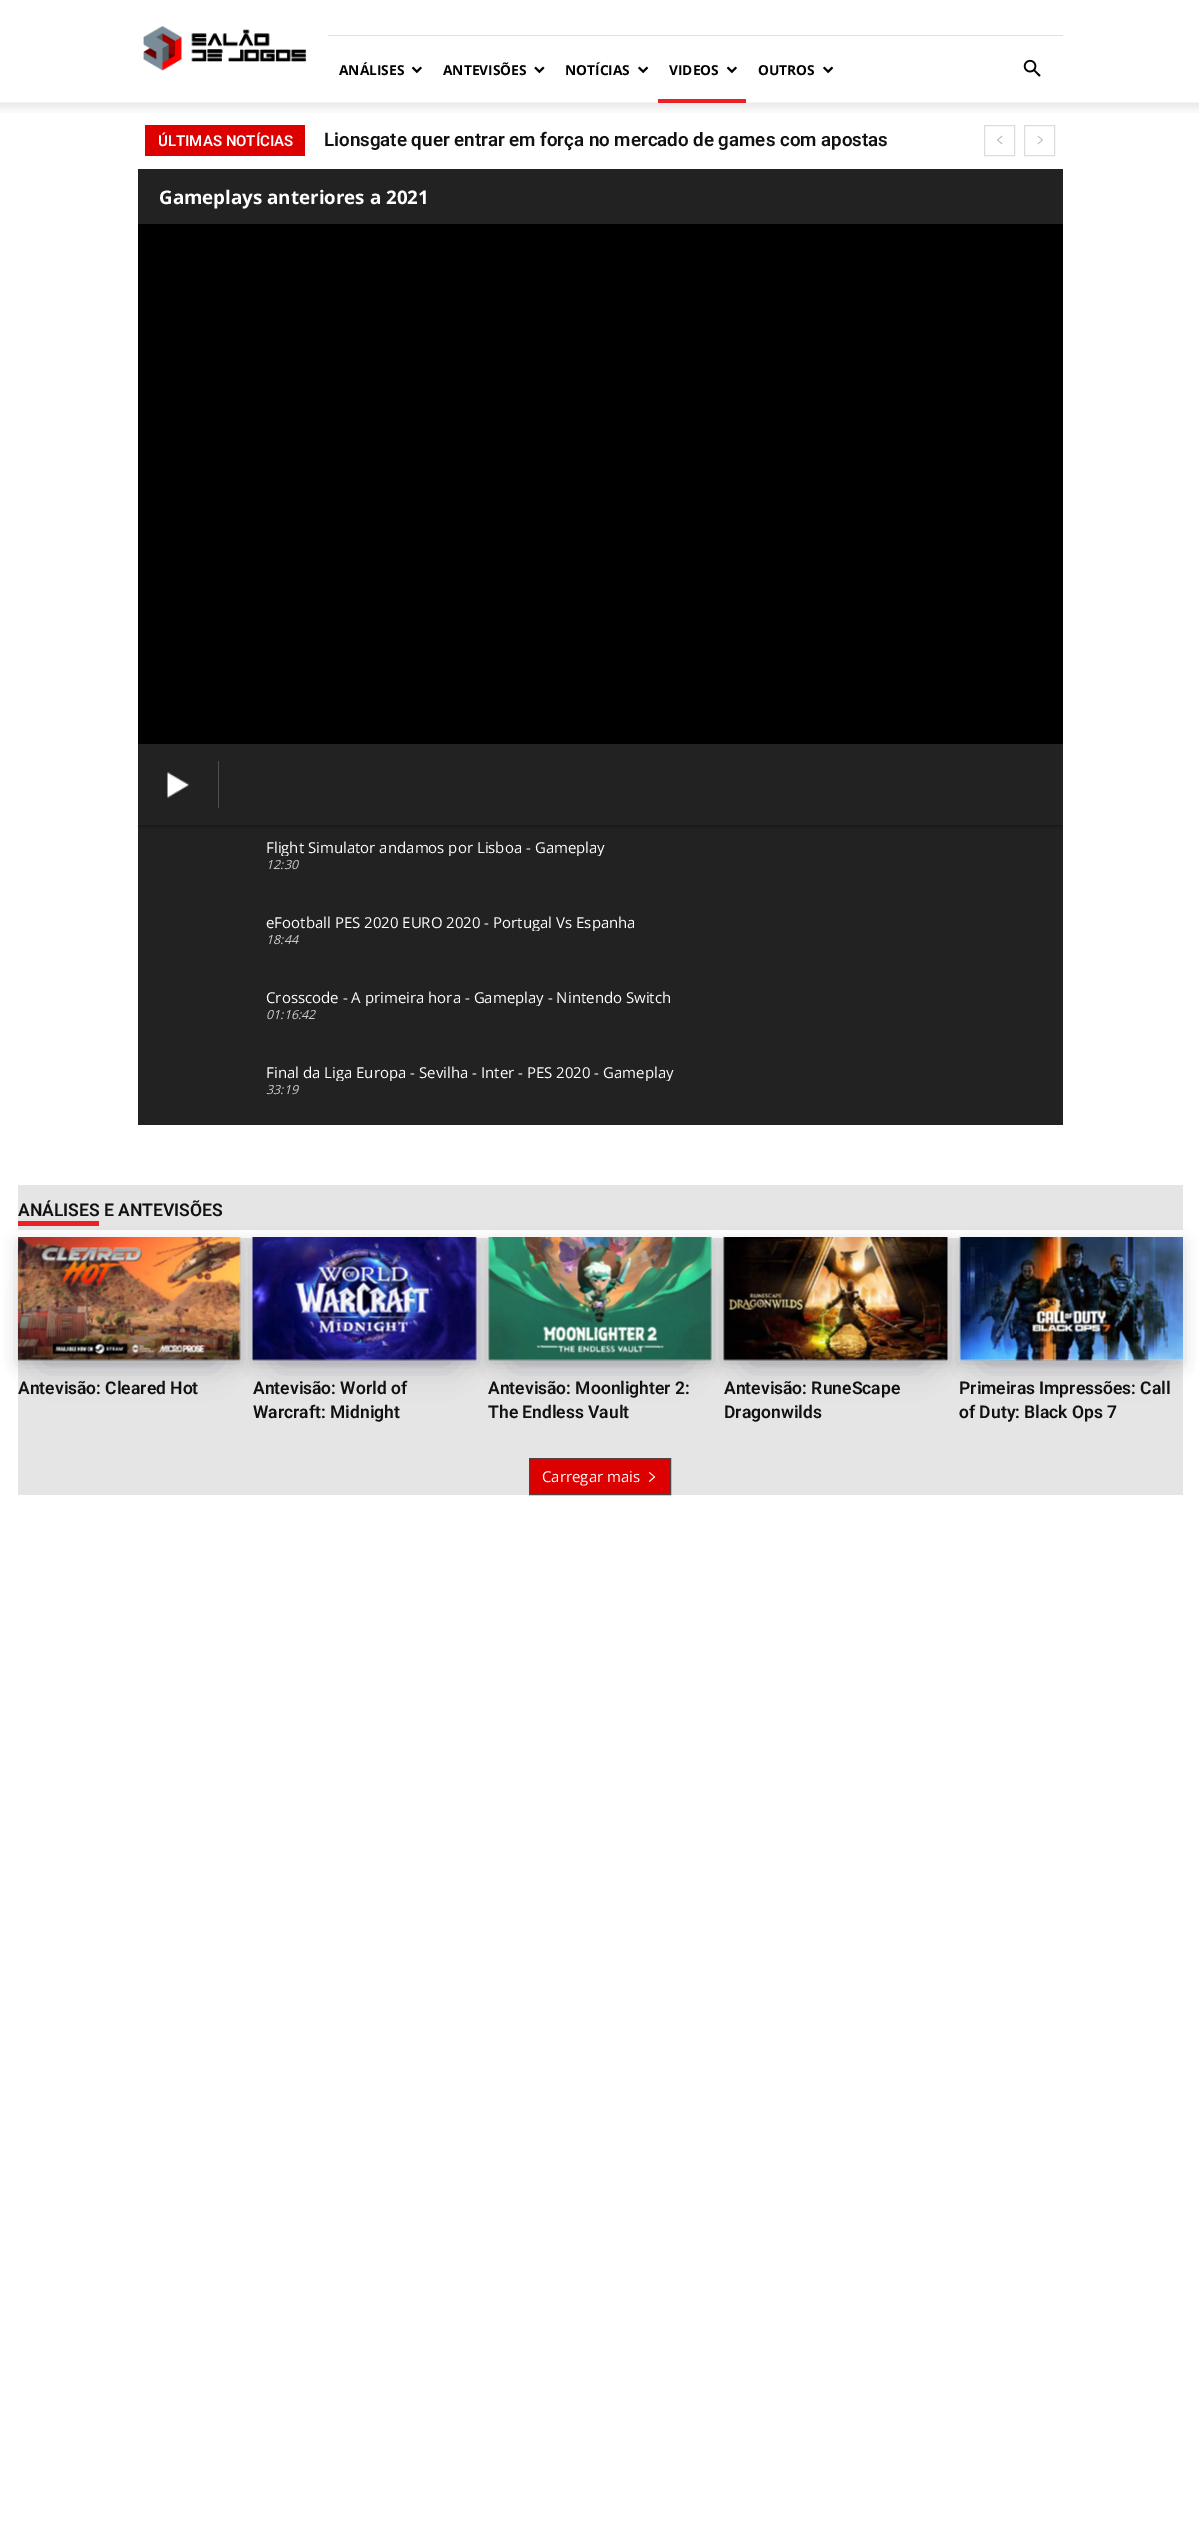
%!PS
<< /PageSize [1199 2535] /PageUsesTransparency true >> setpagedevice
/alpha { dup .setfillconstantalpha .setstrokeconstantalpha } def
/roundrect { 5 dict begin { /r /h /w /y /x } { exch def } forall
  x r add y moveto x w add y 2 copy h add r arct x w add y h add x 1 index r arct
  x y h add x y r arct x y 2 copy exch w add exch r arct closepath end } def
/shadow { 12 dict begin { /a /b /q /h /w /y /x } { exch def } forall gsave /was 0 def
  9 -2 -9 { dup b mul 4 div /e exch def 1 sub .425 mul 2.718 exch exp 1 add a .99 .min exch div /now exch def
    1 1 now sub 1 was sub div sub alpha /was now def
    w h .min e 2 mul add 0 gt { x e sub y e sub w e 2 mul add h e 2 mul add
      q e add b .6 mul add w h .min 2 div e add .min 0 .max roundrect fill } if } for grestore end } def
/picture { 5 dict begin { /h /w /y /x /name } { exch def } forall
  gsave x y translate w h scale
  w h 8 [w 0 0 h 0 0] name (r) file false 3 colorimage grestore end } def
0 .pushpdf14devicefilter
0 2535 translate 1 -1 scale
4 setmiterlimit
1 setgray
0 0 1199 2535 rectfill
(img1.rgb) 143 26 164 45 picture
0.878 setgray
328 35 735 1 rectfill
/OpenSans-Bold [13.75 0 0 -13.75 0 0] selectfont
0 setgray
339 75 moveto (ANÁLISES) show
(img2.rgb) 411 66 11 8 picture
443 75 moveto (ANTEVISÕES) show
(img3.rgb) 534 66 11 8 picture
565 75 moveto (NOTÍCIAS) show
(img4.rgb) 638 66 11 8 picture
669 75 moveto (VIDEOS) show
(img2.rgb) 726 66 11 8 picture
(img6.rgb) 0 102 1199 11 picture
0.922 0.129 0.141 setrgbcolor
658 99 88 4 rectfill
0 setgray
758 75 moveto (OUTROS) show
(img4.rgb) 823 66 11 8 picture
(img5.rgb) 1023 59 18 18 picture
0.867 0 0 setrgbcolor
145 125 160 31 rectfill
/Roboto-SemiBold [15 0 0 -15 0 0] selectfont
1 setgray
158 146 moveto (ÚLTIMAS NOTÍCIAS) show
/Roboto-SemiBold [18.75 0 0 -18.75 0 0] selectfont
0.067 setgray
324 146 moveto (Lionsgate quer entrar em força no mercado de games com apostas) show
0.863 setgray
984.5 125.5 30 30 rectstroke
(img7.rgb) 997 135 6 10 picture
1024.5 125.5 30 30 rectstroke
(img8.rgb) 1037 135 6 10 picture
0.133 setgray
138 169 925 55 rectfill
/OpenSans-Bold [18.75 0 0 -18.75 0 0] selectfont
1 setgray
159 204 moveto (Gameplays anteriores a 2021) show
0 setgray
138 224 925 520 rectfill
0.133 setgray
138 744 925 381 rectfill
(img9.rgb) 167 772 22 26 picture
0.306 setgray
218 761 1 47 rectfill
(img10.rgb) 137 825 925 4 picture
gsave
266 838 747 18 rectclip
/OpenSans-Regular [15 0 0 -15 0 0] selectfont
1 setgray
266 853 moveto (Flight Simulator andamos por Lisboa - Gameplay) show
grestore
/OpenSans-Italic [12.5 0 0 -12.5 0 0] selectfont
0.792 setgray
266 869 moveto (12:30) show
gsave
266 913 747 18 rectclip
/OpenSans-Regular [15 0 0 -15 0 0] selectfont
1 setgray
266 928 moveto (eFootball PES 2020 EURO 2020 - Portugal Vs Espanha) show
grestore
266 944 moveto (18:44) show
gsave
266 988 747 18 rectclip
/OpenSans-Regular [15 0 0 -15 0 0] selectfont
1 setgray
266 1003 moveto (Crosscode - A primeira hora - Gameplay - Nintendo Switch) show
grestore
266 1019 moveto (01:16:42) show
gsave
266 1063 747 18 rectclip
/OpenSans-Regular [15 0 0 -15 0 0] selectfont
1 setgray
266 1078 moveto (Final da Liga Europa - Sevilha - Inter - PES 2020 - Gameplay) show
grestore
266 1094 moveto (33:19) show
0.898 setgray
18 1185 1165 45 rectfill
/Roboto-SemiBold [17.5 0 0 -17.5 0 0] selectfont
0.067 setgray
18 1216 moveto (ANÁLISES E ANTEVISÕES) show
0.922 0.129 0.141 setrgbcolor
18 1221 81 5 rectfill
0.898 setgray
18 1238 1165 257 rectfill
0.027 0.039 0.098 setrgbcolor
43 1290 172 73 0 17 0.2 shadow
19 1243 220 120 0 7.5 0.2 shadow
(img11.rgb) 18 1237 223 124 picture
0.067 setgray
18 1394 moveto (Antevisão: Cleared Hot) show
0.027 0.039 0.098 setrgbcolor
278 1290 173 73 0 17 0.2 shadow
254 1243 221 120 0 7.5 0.2 shadow
(img12.rgb) 252 1237 225 124 picture
0.067 setgray
253 1394 moveto (Antevisão: World of) show
253 1418 moveto (Warcraft: Midnight) show
0.027 0.039 0.098 setrgbcolor
514 1290 172 73 0 17 0.2 shadow
490 1243 220 120 0 7.5 0.2 shadow
(img13.rgb) 488 1237 224 124 picture
0.067 setgray
488 1394 moveto (Antevisão: Moonlighter 2:) show
488 1418 moveto (The Endless Vault) show
0.027 0.039 0.098 setrgbcolor
749 1290 174 73 0 17 0.2 shadow
725 1243 221 120 0 7.5 0.2 shadow
(img14.rgb) 723 1237 225 124 picture
0.067 setgray
724 1394 moveto (Antevisão: RuneScape) show
724 1418 moveto (Dragonwilds) show
0.027 0.039 0.098 setrgbcolor
985 1290 173 73 0 17 0.2 shadow
961 1243 220 120 0 7.5 0.2 shadow
(img15.rgb) 959 1237 224 124 picture
0.067 setgray
959 1394 moveto (Primeiras Impressões: Call) show
959 1418 moveto (of Duty: Black Ops 7) show
0.867 0 0 setrgbcolor
newpath 529.5 1458.5 moveto 670.5 1458.5 lineto 670.5 1494.5 lineto 529.5 1494.5 lineto closepath gsave fill grestore
0.337 0.259 0.259 setrgbcolor
stroke
/OpenSans-Regular [15 0 0 -15 0 0] selectfont
1 setgray
542 1482 moveto (Carregar mais) show
(img16.rgb) 648 1472 8 10 picture
.poppdf14devicefilter showpage
